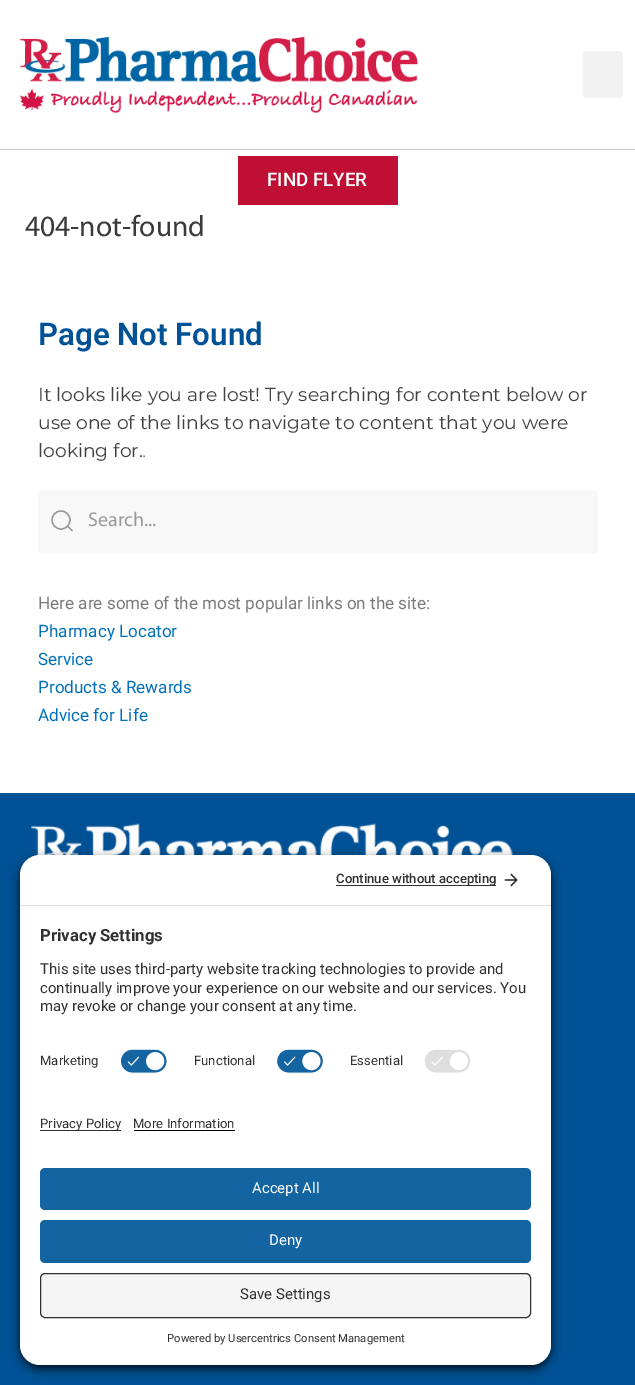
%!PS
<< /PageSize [635 1385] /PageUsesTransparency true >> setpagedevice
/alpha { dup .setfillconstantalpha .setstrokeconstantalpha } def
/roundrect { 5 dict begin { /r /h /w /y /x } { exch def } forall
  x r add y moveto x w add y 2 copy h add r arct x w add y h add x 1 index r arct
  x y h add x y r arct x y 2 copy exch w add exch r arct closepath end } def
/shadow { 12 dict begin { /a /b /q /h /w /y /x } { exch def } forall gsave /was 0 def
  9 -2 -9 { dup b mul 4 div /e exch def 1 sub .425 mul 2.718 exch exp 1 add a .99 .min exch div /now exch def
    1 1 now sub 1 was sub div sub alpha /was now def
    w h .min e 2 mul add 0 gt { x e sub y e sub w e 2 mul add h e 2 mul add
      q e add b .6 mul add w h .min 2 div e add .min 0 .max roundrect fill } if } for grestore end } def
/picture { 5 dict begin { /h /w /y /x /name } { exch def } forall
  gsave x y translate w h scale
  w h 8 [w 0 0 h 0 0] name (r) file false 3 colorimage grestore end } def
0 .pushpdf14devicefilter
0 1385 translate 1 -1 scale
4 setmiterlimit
1 setgray
0 0 635 1385 rectfill
(img1.rgb) 20 36 398 78 picture
0.949 setgray
583 51 40 47 4 roundrect fill
0.796 setgray
0 149 635 1 rectfill
0.749 0.059 0.208 setrgbcolor
238 156 160 49 rectfill
/Roboto-Medium [18.75 0 0 -18.75 0 0] selectfont
1 setgray
267 186 moveto (FIND FLYER) show
/Myriad-Regular [29.5 0 0 -29.5 0 0] selectfont
0.227 setgray
25 236 moveto (404-not-found) show
/Roboto-SemiBold [31.25 0 0 -31.25 0 0] selectfont
0 0.318 0.584 setrgbcolor
38 345 moveto (Page Not Found) show
/Montserrat-Regular [18.75 0 0 -18.75 0 0] selectfont
0.255 0.251 0.259 setrgbcolor
38 401 moveto (It looks like you are lost! Try searching for content below or) show
38 429 moveto (use one of the links to navigate to content that you were) show
38 457 moveto (looking for.) show
/Roboto-Regular [17.1 0 0 -17.1 0 0] selectfont
0.478 setgray
142 457 moveto (.) show
0.973 setgray
38 490 560 63 4 roundrect fill
0.6 setgray
1.4 setlinewidth
newpath 61 520 9 0 360 arc closepath stroke
newpath 67.5 526 moveto 72.5 531 lineto closepath stroke
/Myriad-Regular [20 0 0 -20 0 0] selectfont
88 526 moveto (Search...) show
/Roboto-Regular [17.1 0 0 -17.1 0 0] selectfont
0.478 setgray
38 609 moveto (Here are some of the most popular links on the site:) show
0.004 0.439 0.725 setrgbcolor
38 637 moveto (Pharmacy Locator) show
38 665 moveto (Service) show
38 693 moveto (Products & Rewards) show
38 721 moveto (Advice for Life) show
0 0.318 0.584 setrgbcolor
0 793 635 592 rectfill
(img2.rgb) 31 823 482 33 picture
0 setgray
20 859 531 510 20 4.5 0.8 shadow
1 setgray
newpath 40 855 moveto 531 855 lineto 542 855 551 864 551 875 curveto 551 906 lineto 20 906 lineto 20 875 lineto 20 864 29 855 40 855 curveto closepath fill
0.871 setgray
20 905 531 1 rectfill
0.188 setgray
336 885 160 1 rectfill
/Roboto-Medium [13.1 0 0 -13.1 0 0] selectfont
336 883 moveto (Continue without accepting) show
(img3.rgb) 504 873 14 14 picture
1 setgray
20 906 531 190 rectfill
/Roboto-Bold [16.75 0 0 -16.75 0 0] selectfont
0.188 setgray
40 941 moveto (Privacy Settings) show
/Roboto-Regular [14.95 0 0 -14.95 0 0] selectfont
40 974 moveto (This site uses third-party website tracking technologies to provide and) show
40 993 moveto (continually improve your experience on our website and our services. You) show
40 1011 moveto (may revoke or change your consent at any time.) show
/Roboto-Regular [13.1 0 0 -13.1 0 0] selectfont
40 1065 moveto (Marketing) show
(img4.rgb) 120 1049 48 25 picture
194 1065 moveto (Functional) show
(img5.rgb) 276 1049 48 25 picture
350 1065 moveto (Essential) show
(img6.rgb) 424 1049 47 24 picture
1 setgray
newpath 20 1096 moveto 551 1096 lineto 551 1345 lineto 551 1356 542 1365 531 1365 curveto 40 1365 lineto 29 1365 20 1356 20 1345 curveto closepath fill
0.188 setgray
40 1130 81 1 rectfill
40 1128 moveto (Privacy Policy) show
133 1128 moveto (More Information) show
0 setgray
134 1130 101 1 rectfill
0.078 0.392 0.631 setrgbcolor
40 1168 491 42 5 roundrect fill
/Roboto-Regular [14.95 0 0 -14.95 0 0] selectfont
1 setgray
252 1193 moveto (Accept All) show
0.078 0.392 0.631 setrgbcolor
40 1220 491 43 5 roundrect fill
1 setgray
269 1245 moveto (Deny) show
0.961 setgray
40.5 1273.5 490 44 4.5 roundrect gsave fill grestore
0.188 setgray
1 setlinewidth
stroke
240 1299 moveto (Save Settings) show
/Roboto-Regular [11.25 0 0 -11.25 0 0] selectfont
167 1342 moveto (Powered by Usercentrics Consent Management) show
.poppdf14devicefilter showpage
